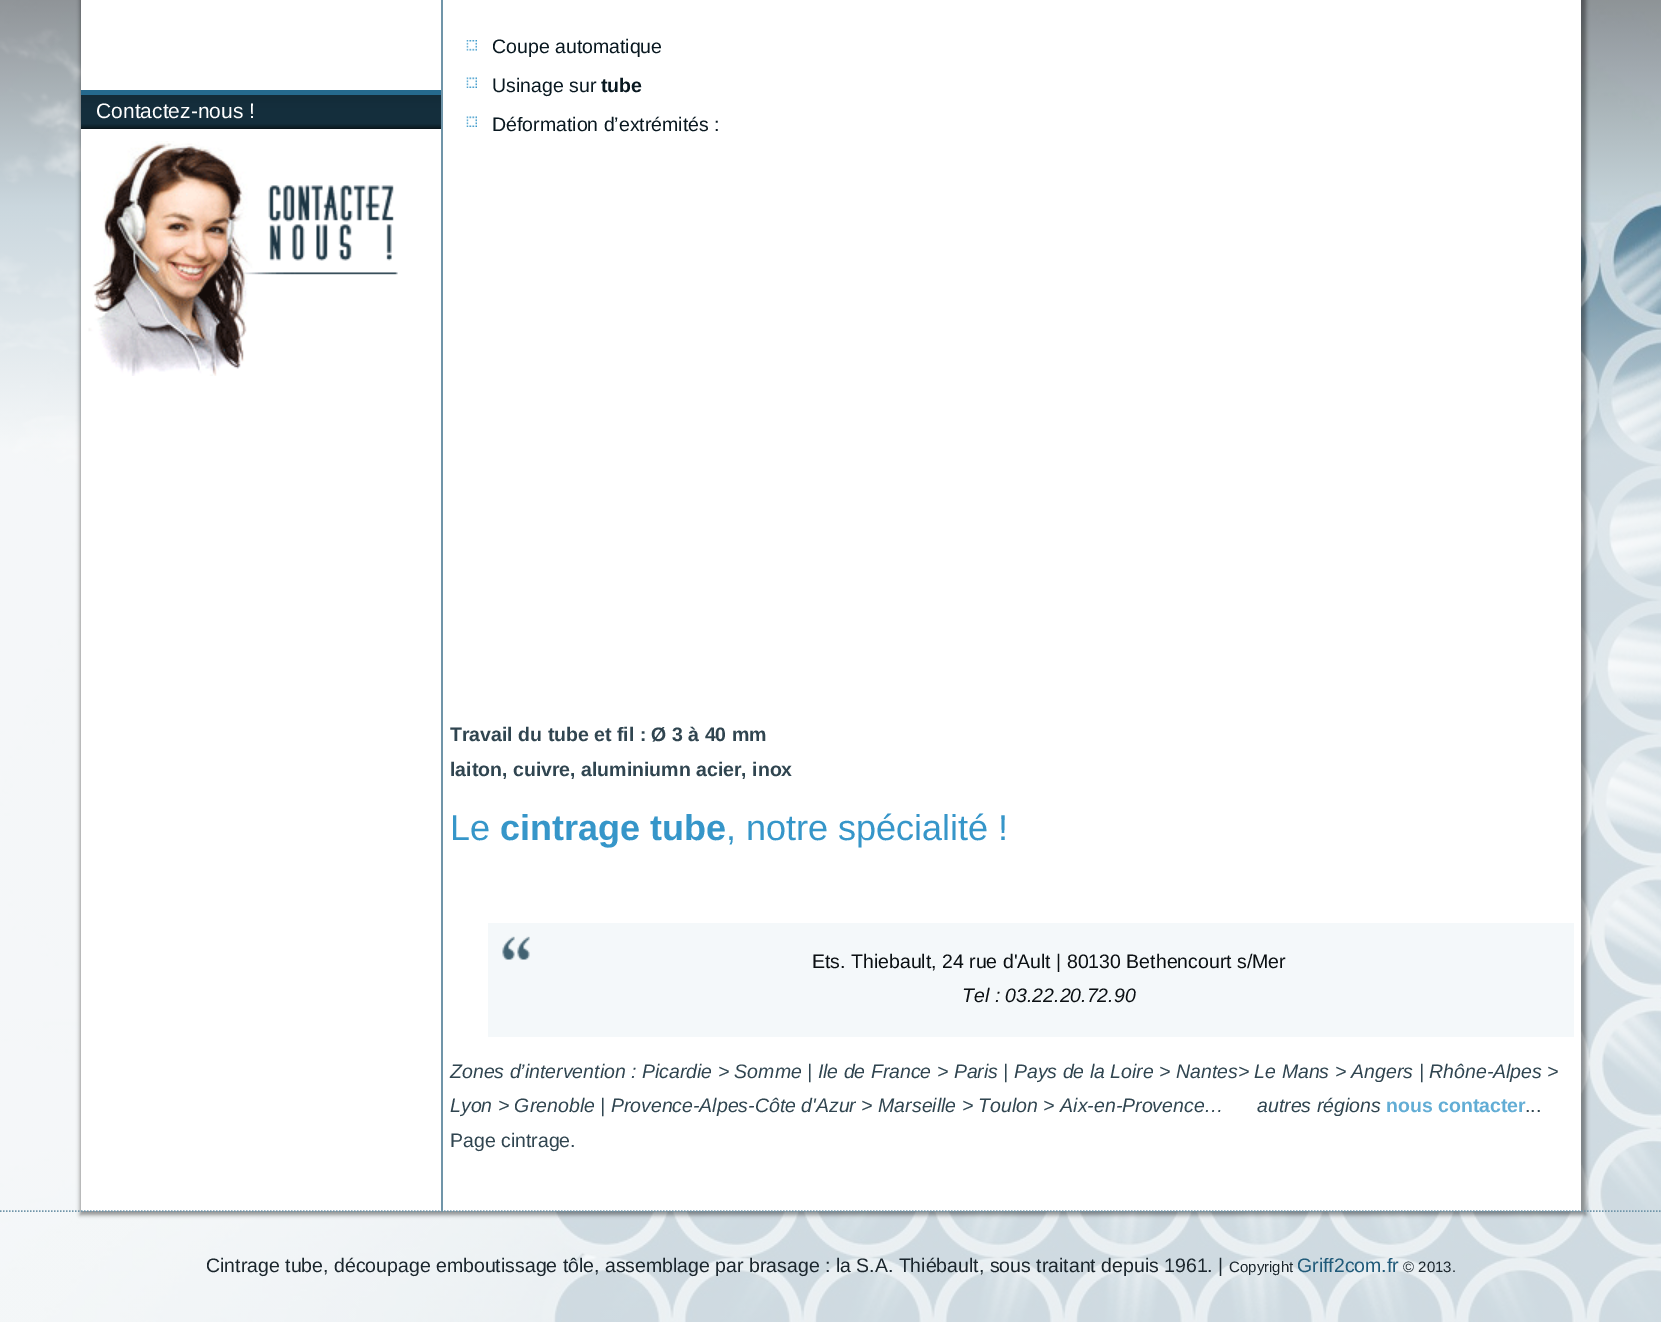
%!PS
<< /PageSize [1661 1322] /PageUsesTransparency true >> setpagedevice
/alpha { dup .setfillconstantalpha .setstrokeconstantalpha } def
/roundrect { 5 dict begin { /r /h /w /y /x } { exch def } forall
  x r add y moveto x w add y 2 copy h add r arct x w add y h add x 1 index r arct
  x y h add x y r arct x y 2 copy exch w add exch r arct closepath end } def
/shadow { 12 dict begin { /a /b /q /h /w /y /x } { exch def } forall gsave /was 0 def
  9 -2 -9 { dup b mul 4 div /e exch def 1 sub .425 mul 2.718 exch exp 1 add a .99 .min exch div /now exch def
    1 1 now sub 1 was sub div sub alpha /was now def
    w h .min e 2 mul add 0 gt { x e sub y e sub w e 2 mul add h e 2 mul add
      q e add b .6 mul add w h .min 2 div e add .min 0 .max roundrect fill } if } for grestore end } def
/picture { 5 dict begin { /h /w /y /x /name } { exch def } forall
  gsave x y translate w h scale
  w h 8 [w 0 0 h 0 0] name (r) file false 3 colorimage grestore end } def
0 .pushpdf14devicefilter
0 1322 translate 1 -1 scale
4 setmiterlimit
1 setgray
0 0 1661 1322 rectfill
(img1.rgb) 0 0 1661 1322 picture
0 setgray
80 -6 1506 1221 0 2 0.4 shadow
1 setgray
81 0 1500 1211 rectfill
0.439 0.584 0.663 setrgbcolor
441 0 2 1212 rectfill
gsave newpath 81 95 moveto 441 95 lineto 441 129 lineto 81 129 lineto closepath clip newpath
<< /ShadingType 2 /ColorSpace /DeviceRGB /Coords [261 94 261 129] /Extend [true true] /Function << /FunctionType 3 /Domain [0 1] /Functions [<< /FunctionType 2 /Domain [0 1] /C0 [0.075 0.169 0.22] /C1 [0.078 0.18 0.235] /N 1 >> << /FunctionType 2 /Domain [0 1] /C0 [0.078 0.18 0.235] /C1 [0.078 0.18 0.235] /N 1 >> << /FunctionType 2 /Domain [0 1] /C0 [0.078 0.18 0.235] /C1 [0.043 0.09 0.114] /N 1 >>] /Bounds [0.4 0.85] /Encode [0 1 0 1 0 1] >> >> shfill grestore
0.145 0.412 0.553 setrgbcolor
81 90 360 5 rectfill
/LiberationSans-Regular [21 0 0 -21 0 0] selectfont
1 setgray
96 118 moveto (Contactez-nous !) show
(img2.rgb) 88 141 310 235 picture
(img3.rgb) 466 40 11 11 picture
/LiberationSans-Regular [19.5 0 0 -19.5 0 0] selectfont
0.035 0.094 0.125 setrgbcolor
492 53 moveto (Coupe automatique) show
(img4.rgb) 466 77 11 11 picture
492 92 moveto (Usinage sur) show
/LiberationSans-Bold [19.5 0 0 -19.5 0 0] selectfont
601 92 moveto (tube) show
(img4.rgb) 466 116 11 11 picture
/LiberationSans-Regular [19.5 0 0 -19.5 0 0] selectfont
492 131 moveto (Déformation d’extrémités :) show
/LiberationSans-Bold [19.5 0 0 -19.5 0 0] selectfont
0.188 0.271 0.314 setrgbcolor
450 741 moveto (Travail du tube et fil : Ø 3 à 40 mm) show
450 776 moveto (laiton, cuivre, aluminiumn acier, inox) show
/LiberationSans-Regular [36 0 0 -36 0 0] selectfont
0.212 0.588 0.788 setrgbcolor
450 840 moveto (Le) show
/LiberationSans-Bold [36 0 0 -36 0 0] selectfont
500 840 moveto (cintrage tube) show
/LiberationSans-Regular [36 0 0 -36 0 0] selectfont
726 840 moveto (, notre spécialité !) show
0.957 0.973 0.98 setrgbcolor
488 923 1086 114 rectfill
(img5.rgb) 502 936 28 24 picture
/LiberationSans-Regular [19.5 0 0 -19.5 0 0] selectfont
0.043 0.063 0.075 setrgbcolor
812 968 moveto (Ets. Thiebault, 24 rue d'Ault | 80130 Bethencourt s/Mer) show
/LiberationSans-Italic [19.5 0 0 -19.5 0 0] selectfont
962 1002 moveto (Tel : 03.22.20.72.90) show
0.188 0.271 0.314 setrgbcolor
450 1078 moveto (Zones d’intervention : Picardie > Somme | Ile de France > Paris | Pays de la Loire > Nantes> Le Mans > Angers | Rhône-Alpes >) show
450 1112 moveto (Lyon > Grenoble | Provence-Alpes-Côte d'Azur > Marseille > Toulon > Aix-en-Provence…) show
1257 1112 moveto (autres régions) show
/LiberationSans-Bold [19.5 0 0 -19.5 0 0] selectfont
0.384 0.678 0.835 setrgbcolor
1386 1112 moveto (nous contacter) show
/LiberationSans-Regular [19.5 0 0 -19.5 0 0] selectfont
0.188 0.271 0.314 setrgbcolor
1525 1112 moveto (...) show
450 1147 moveto (Page cintrage.) show
0.439 0.584 0.663 setrgbcolor
1.5 setlinewidth
[1.5 1.5] 0 setdash
newpath 0 1211 moveto 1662 1211 lineto stroke
0.106 0.149 0.176 setrgbcolor
206 1272 moveto (Cintrage tube, découpage emboutissage tôle, assemblage par brasage : la S.A. Thiébault, sous traitant depuis 1961. |) show
/LiberationSans-Regular [15 0 0 -15 0 0] selectfont
1229 1272 moveto (Copyright) show
/LiberationSans-Regular [19.5 0 0 -19.5 0 0] selectfont
0.125 0.353 0.475 setrgbcolor
1297 1272 moveto (Griff2com.fr) show
/LiberationSans-Regular [15 0 0 -15 0 0] selectfont
0.106 0.149 0.176 setrgbcolor
1403 1272 moveto (© 2013.) show
.poppdf14devicefilter showpage
